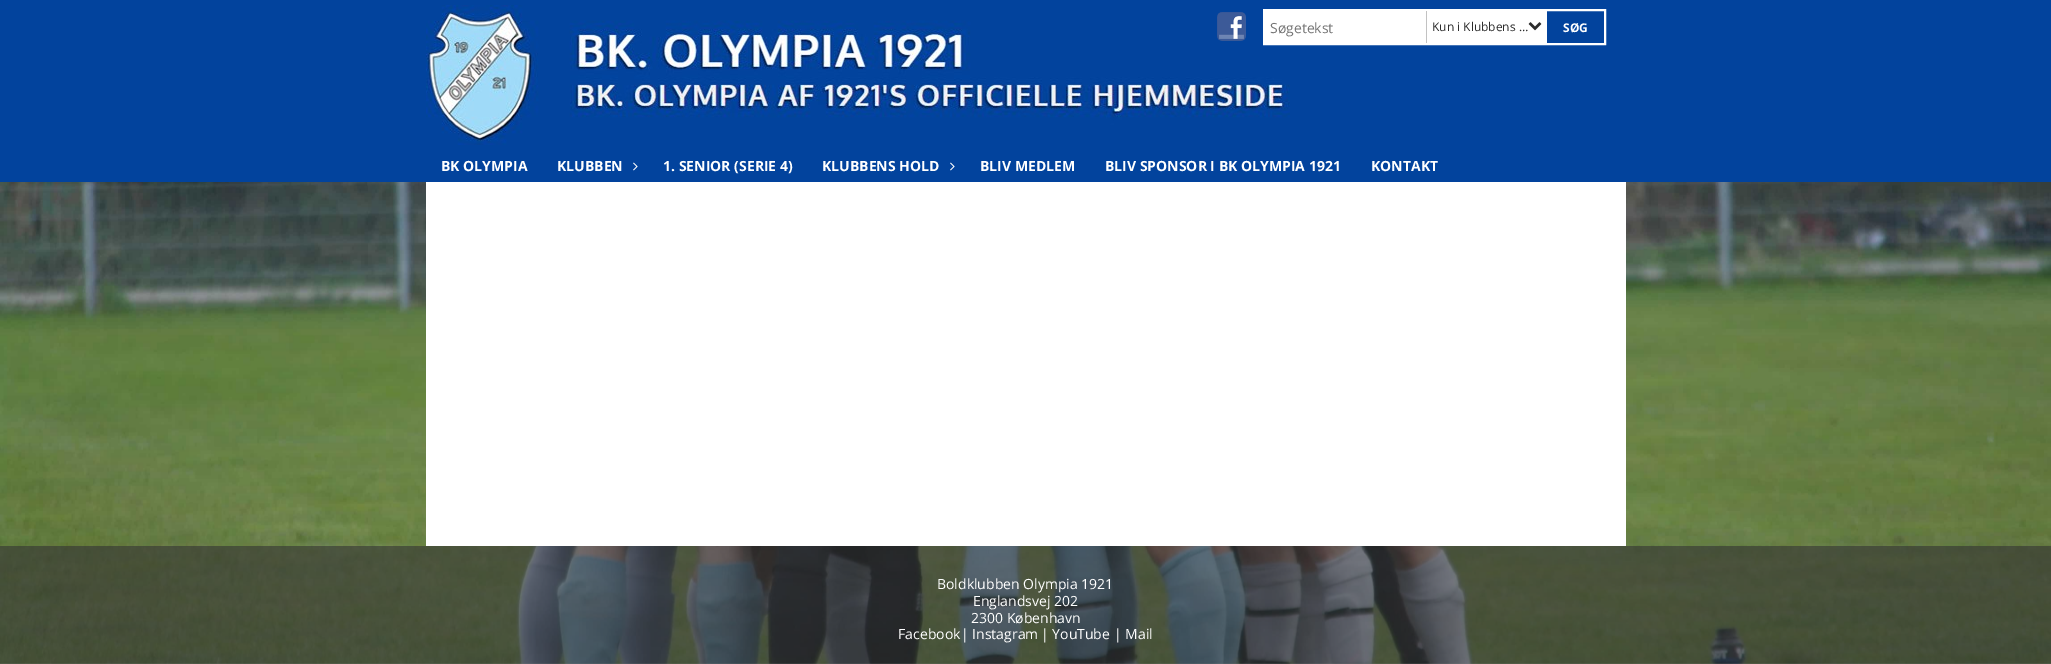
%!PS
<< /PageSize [2051 664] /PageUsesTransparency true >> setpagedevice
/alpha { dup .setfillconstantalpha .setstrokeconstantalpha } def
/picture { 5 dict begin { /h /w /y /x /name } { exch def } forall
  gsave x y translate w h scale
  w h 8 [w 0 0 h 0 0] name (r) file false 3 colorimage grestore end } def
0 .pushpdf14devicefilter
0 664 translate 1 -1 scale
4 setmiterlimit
1 setgray
0 0 2051 664 rectfill
0.008 0.263 0.616 setrgbcolor
0 0 2051 182 rectfill
(img1.rgb) 426 5 864 140 picture
(img2.rgb) 1217 12 29 29 picture
1 setgray
2 setlinewidth
1264 10 341 34 rectstroke
1265 11 161 32 rectfill
/OpenSans-Regular [14 0 0 -14 0 0] selectfont
0.459 setgray
1270 33 moveto (Søgetekst) show
1 setgray
1427 11 120 32 rectfill
0.761 setgray
1426 11 1 32 rectfill
/OpenSans-Regular [12 0 0 -12 0 0] selectfont
0.173 setgray
1432 31 moveto (Kun i Klubbens …) show
(img3.rgb) 1528 22 14 9 picture
/OpenSans-Bold [12 0 0 -12 0 0] selectfont
1 setgray
1563 32 moveto (SØG) show
/OpenSans-Bold [14 0 0 -14 0 0] selectfont
441 171 moveto (BK OLYMPIA) show
557 171 moveto (KLUBBEN) show
(img4.rgb) 633 162 5 9 picture
663 171 moveto (1. SENIOR \(SERIE 4\)) show
822 171 moveto (KLUBBENS HOLD) show
(img4.rgb) 950 162 5 9 picture
980 171 moveto (BLIV MEDLEM) show
1105 171 moveto (BLIV SPONSOR I BK OLYMPIA 1921) show
1371 171 moveto (KONTAKT) show
(img5.rgb) 0 182 2051 482 picture
426 182 1200 364 rectfill
0.6 alpha
0.2 setgray
0 546 2051 118 rectfill
/OpenSans-Regular [14 0 0 -14 0 0] selectfont
1 alpha
1 setgray
937 589 moveto (Boldklubben Olympia 1921) show
973 606 moveto (Englandsvej 202) show
971 623 moveto (2300 København) show
898 639 moveto (Facebook) show
961 639 moveto (| Instagram) show
1041 639 moveto (| YouTube) show
1114 639 moveto (| Mail) show
.poppdf14devicefilter showpage
